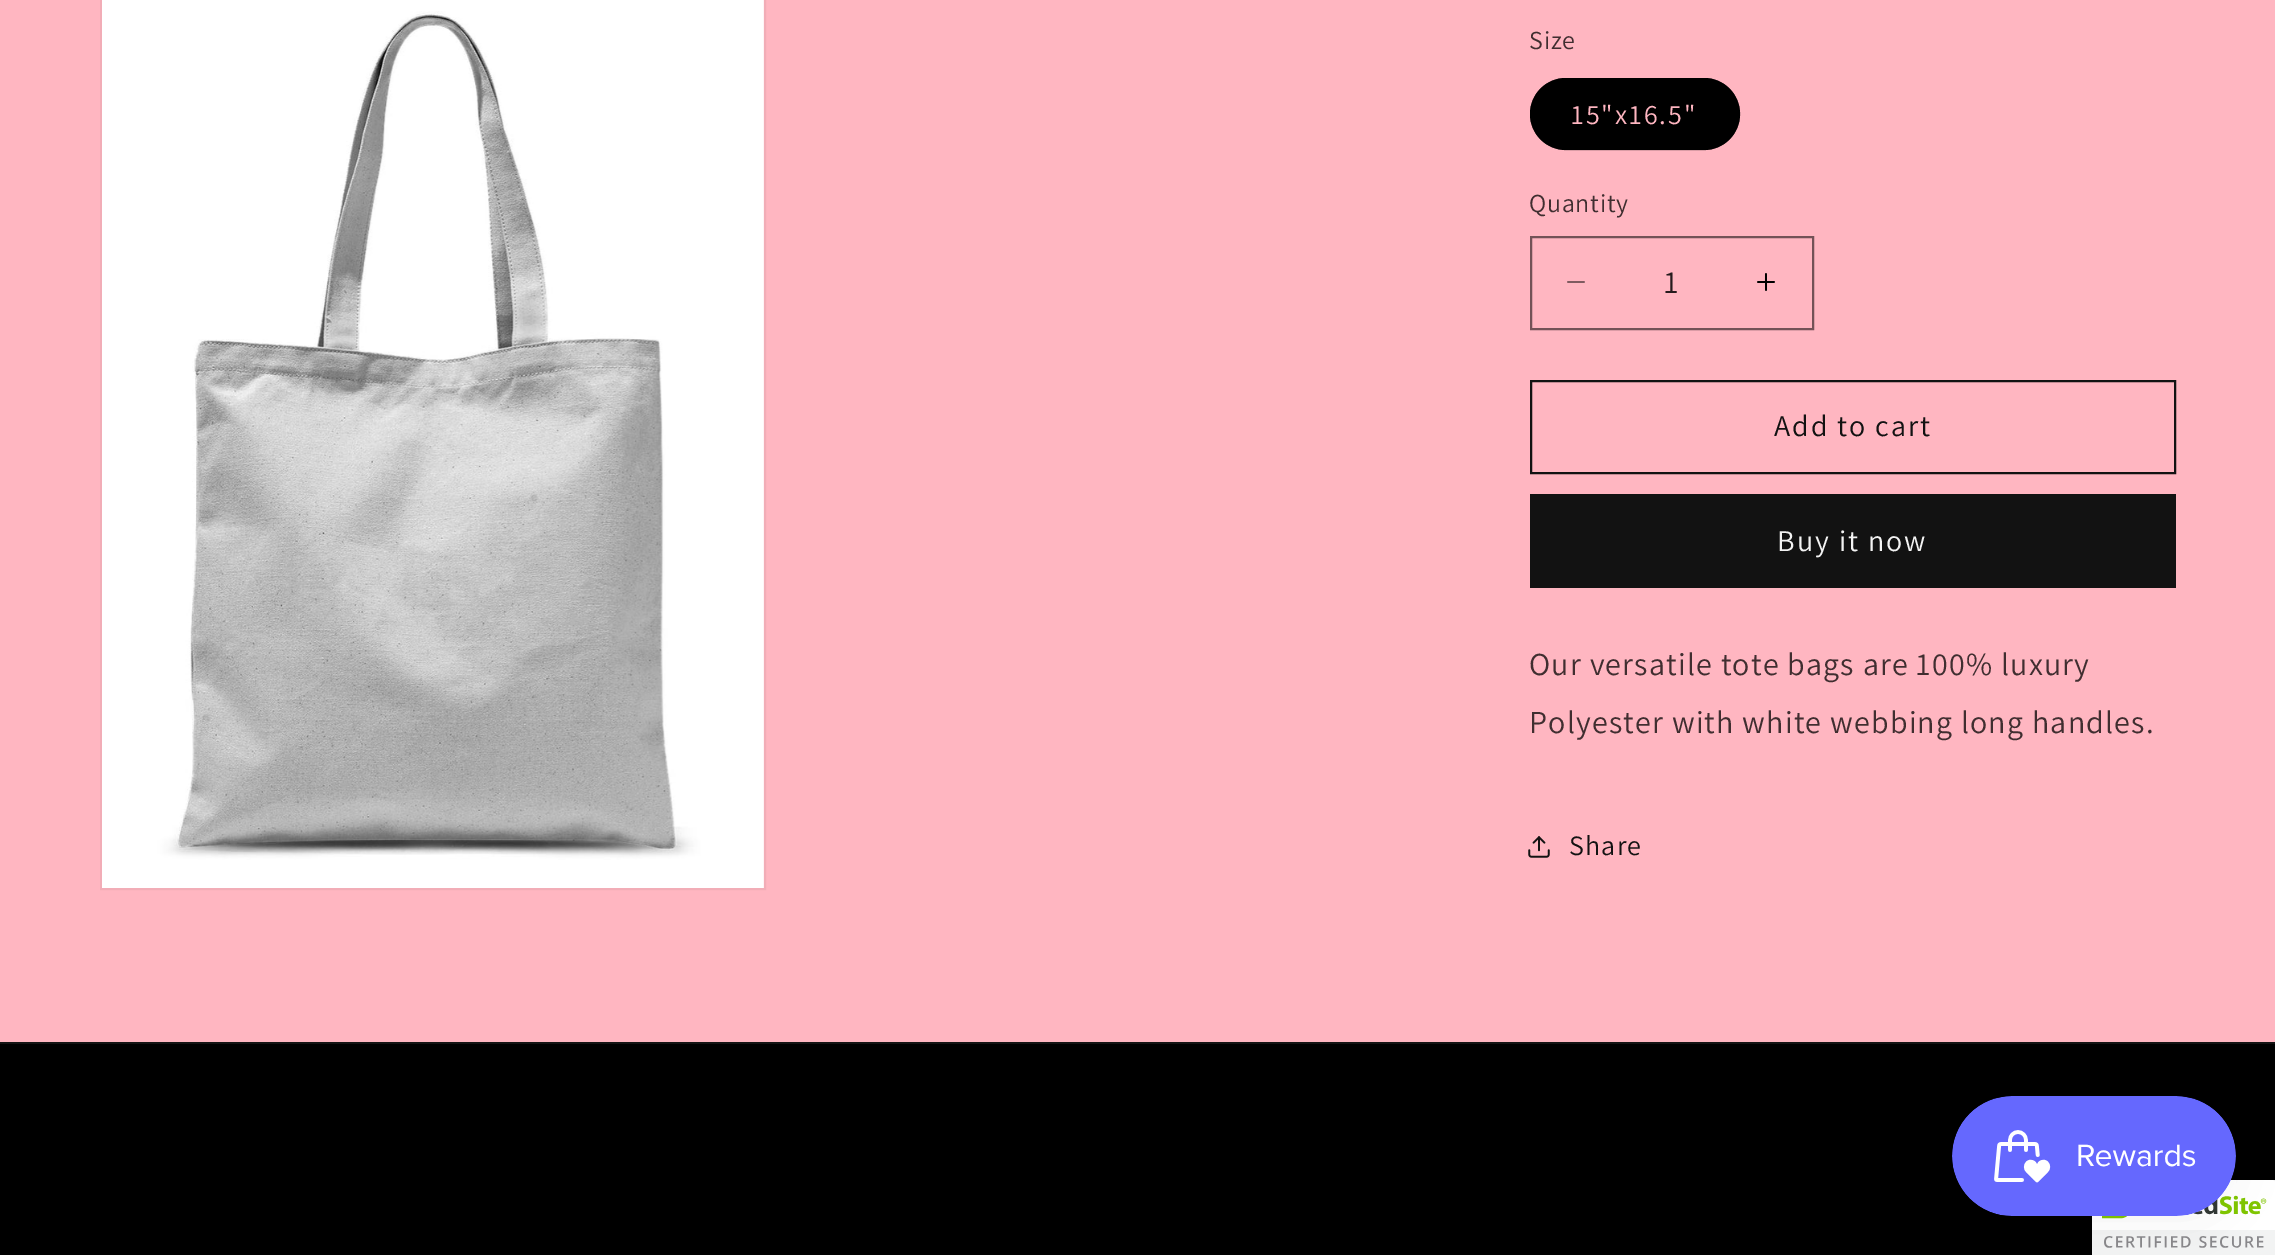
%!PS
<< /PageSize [2275 1255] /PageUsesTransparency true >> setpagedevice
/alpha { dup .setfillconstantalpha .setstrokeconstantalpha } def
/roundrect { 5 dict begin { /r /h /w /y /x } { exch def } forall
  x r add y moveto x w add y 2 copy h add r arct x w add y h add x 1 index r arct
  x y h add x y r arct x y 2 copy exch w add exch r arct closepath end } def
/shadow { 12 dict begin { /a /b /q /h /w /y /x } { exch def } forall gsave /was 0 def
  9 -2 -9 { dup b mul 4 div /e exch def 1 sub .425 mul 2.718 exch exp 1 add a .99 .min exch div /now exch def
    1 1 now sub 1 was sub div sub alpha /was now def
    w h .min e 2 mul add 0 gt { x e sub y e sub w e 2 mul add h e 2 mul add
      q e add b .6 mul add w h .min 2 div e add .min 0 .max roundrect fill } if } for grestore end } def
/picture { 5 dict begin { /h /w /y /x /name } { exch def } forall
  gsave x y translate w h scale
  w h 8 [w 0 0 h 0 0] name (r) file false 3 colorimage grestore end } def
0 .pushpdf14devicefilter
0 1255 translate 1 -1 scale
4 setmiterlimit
0 setgray
0 0 2275 1255 rectfill
1 0.714 0.757 setrgbcolor
0 0 2275 1042 rectfill
0.949 0.678 0.718 setrgbcolor
2 setlinewidth
101 -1 664 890 rectstroke
(img1.rgb) 102 0 662 888 picture
/Assistant-Regular [26 0 0 -26 0 0] selectfont
0.251 0.18 0.188 setrgbcolor
1529 49 moveto 0.75 0 (Size) ashow
0 setgray
1530 78 210 72 36 roundrect fill
0.55 alpha
1531 79 208 70 35 roundrect stroke
/Assistant-Regular [28 0 0 -28 0 0] selectfont
1 alpha
1 0.714 0.757 setrgbcolor
1571 124 moveto 2 0 (15"x16.5") ashow
/Assistant-Regular [26 0 0 -26 0 0] selectfont
0.251 0.18 0.188 setrgbcolor
1529 212 moveto 0.75 0 (Quantity) ashow
(img2.rgb) 1567 281 18 2 picture
(img3.rgb) 1757 273 18 18 picture
0.451 0.322 0.341 setrgbcolor
1531 237 282 92 rectstroke
/Assistant-Regular [32 0 0 -32 0 0] selectfont
0.149 0.106 0.114 setrgbcolor
1664 293 moveto (1) show
0.071 setgray
1531 381 644 92 rectstroke
/Assistant-Regular [30 0 0 -30 0 0] selectfont
1774 436 moveto 2 0 (Add to cart) ashow
1530 494 646 94 rectfill
0.953 setgray
1777 551 moveto 2 0 (Buy it now) ashow
/Assistant-Regular [32 0 0 -32 0 0] selectfont
0.251 0.18 0.188 setrgbcolor
1529 675 moveto 1.2 0 (Our versatile tote bags are 100% luxury) ashow
1529 733 moveto 1.2 0 (Polyester with white webbing long handles.) ashow
(img4.rgb) 1528 836 22 22 picture
/Assistant-Regular [28 0 0 -28 0 0] selectfont
0.071 setgray
1569 855 moveto 1.2 0 (Share) ashow
0.078 setgray
0 1042 2275 2 rectfill
1 setgray
2272 1180 3 2 rectfill
(img6.rgb) 2092 1180 183 75 picture
0 setgray
1952 1096 284 120 60 25 0.05 shadow
(img5.rgb) 1952 1096 284 120 picture
.poppdf14devicefilter showpage
